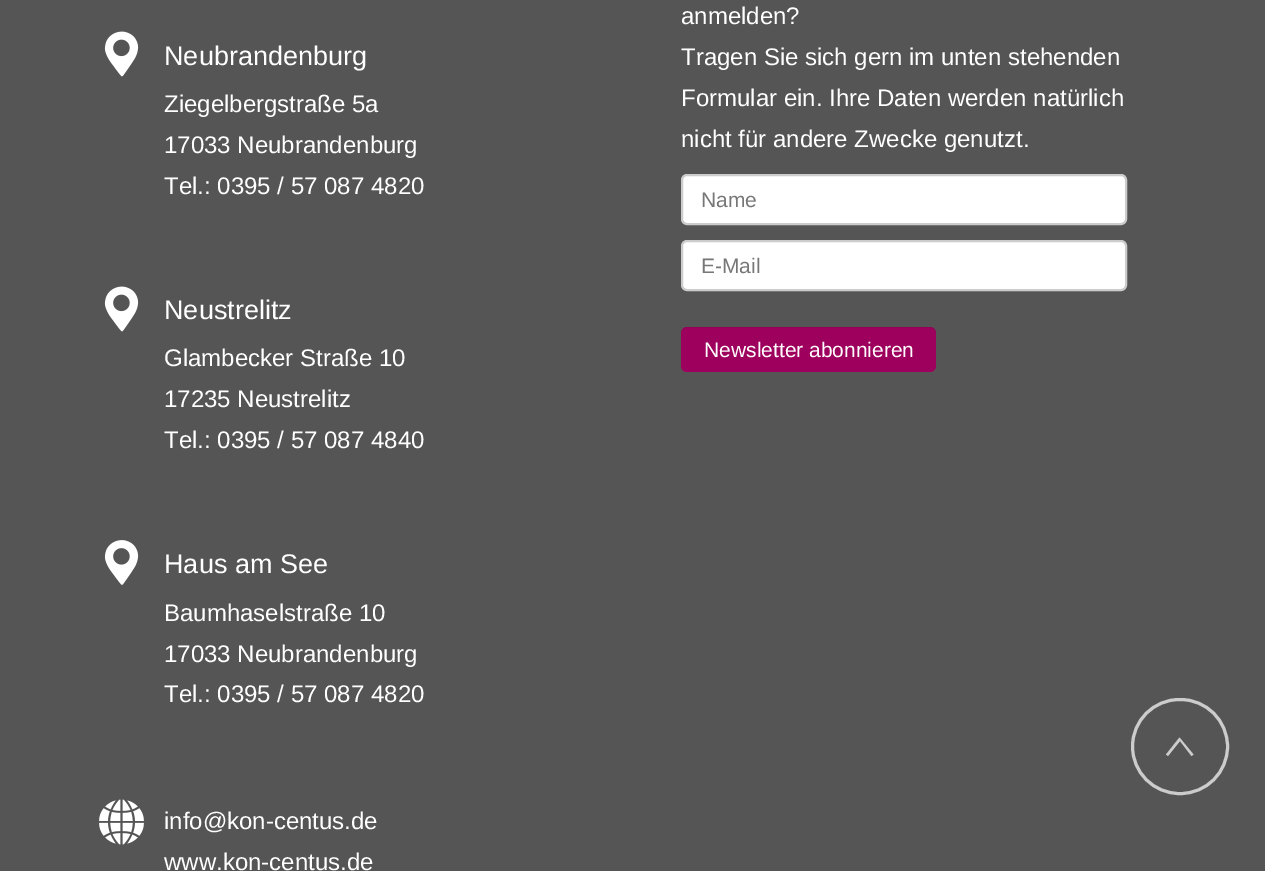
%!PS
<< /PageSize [1265 871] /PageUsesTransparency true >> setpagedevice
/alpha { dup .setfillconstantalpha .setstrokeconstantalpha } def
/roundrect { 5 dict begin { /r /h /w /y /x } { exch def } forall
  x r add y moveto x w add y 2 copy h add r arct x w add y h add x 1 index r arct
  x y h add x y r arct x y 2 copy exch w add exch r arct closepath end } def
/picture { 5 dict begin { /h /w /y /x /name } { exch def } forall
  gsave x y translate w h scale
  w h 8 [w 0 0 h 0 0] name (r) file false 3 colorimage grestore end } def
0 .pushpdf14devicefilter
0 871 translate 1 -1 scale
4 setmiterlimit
0.333 setgray
0 0 1265 871 rectfill
(img1.rgb) 104 31 35 46 picture
/LiberationSans-Regular [27 0 0 -27 0 0] selectfont
1 setgray
164 65 moveto (Neubrandenburg) show
/LiberationSans-Regular [24 0 0 -24 0 0] selectfont
164 112 moveto (Ziegelbergstraße 5a) show
164 153 moveto (17033 Neubrandenburg) show
164 194 moveto (Tel.: 0395 / 57 087 4820) show
(img1.rgb) 104 286 35 46 picture
/LiberationSans-Regular [27 0 0 -27 0 0] selectfont
164 319 moveto (Neustrelitz) show
/LiberationSans-Regular [24 0 0 -24 0 0] selectfont
164 366 moveto (Glambecker Straße 10) show
164 407 moveto (17235 Neustrelitz) show
164 448 moveto (Tel.: 0395 / 57 087 4840) show
(img2.rgb) 104 540 35 45 picture
/LiberationSans-Regular [27 0 0 -27 0 0] selectfont
164 573 moveto (Haus am See) show
/LiberationSans-Regular [24 0 0 -24 0 0] selectfont
164 621 moveto (Baumhaselstraße 10) show
164 662 moveto (17033 Neubrandenburg) show
164 702 moveto (Tel.: 0395 / 57 087 4820) show
(img3.rgb) 99 799 45 46 picture
164 829 moveto (info@kon-centus.de) show
164 870 moveto (www.kon-centus.de) show
681 24 moveto (anmelden?) show
681 65 moveto (Tragen Sie sich gern im unten stehenden) show
681 106 moveto (Formular ein. Ihre Daten werden natürlich) show
681 147 moveto (nicht für andere Zwecke genutzt.) show
682 175 444 49 5 roundrect gsave fill grestore
0.8 setgray
2 setlinewidth
stroke
/LiberationSans-Regular [21 0 0 -21 0 0] selectfont
0.467 setgray
701 207 moveto (Name) show
1 setgray
682 241 444 49 5 roundrect gsave fill grestore
0.8 setgray
stroke
0.467 setgray
701 273 moveto (E-Mail) show
0.62 0 0.365 setrgbcolor
681 327 255 45 6 roundrect fill
0.07 alpha
0 setgray
newpath 687 328 moveto 930 328 lineto 933 328 936 331 936 334 curveto 936 333 lineto 936 330 933 327 930 327 curveto 687 327 lineto 684 327 681 330 681 333 curveto 681 334 lineto 681 331 684 328 687 328 curveto closepath fill
1 alpha
1 setgray
704 357 moveto (Newsletter abonnieren) show
0.8 setgray
3 setlinewidth
1132.5 699.5 95 94 47 roundrect stroke
newpath 1179.5 737.5 moveto 1193.5 754.5 lineto 1191.5 756 lineto 1180 741 lineto 1168 756 lineto 1166 754.5 lineto closepath fill
.poppdf14devicefilter showpage
